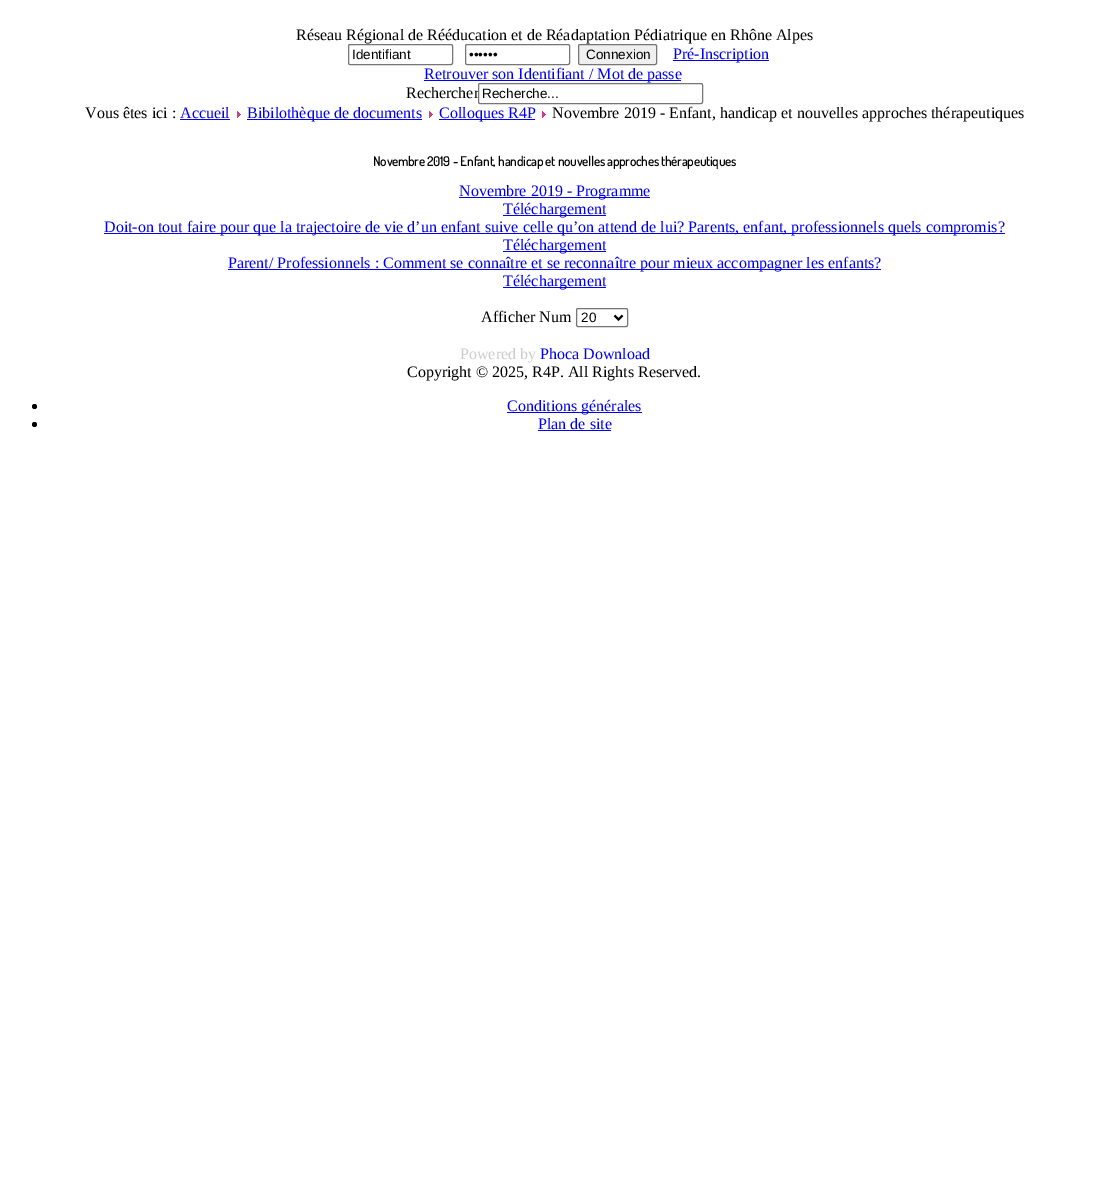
%!PS
<< /PageSize [1109 1201] >> setpagedevice
/roundrect { 5 dict begin { /r /h /w /y /x } { exch def } forall
  x r add y moveto x w add y 2 copy h add r arct x w add y h add x 1 index r arct
  x y h add x y r arct x y 2 copy exch w add exch r arct closepath end } def
/picture { 5 dict begin { /h /w /y /x /name } { exch def } forall
  gsave x y translate w h scale
  w h 8 [w 0 0 h 0 0] name (r) file false 3 colorimage grestore end } def
0 1201 translate 1 -1 scale
4 setmiterlimit
1 setgray
0 0 1109 1201 rectfill
/LiberationSerif-Regular [16 0 0 -16 0 0] selectfont
0 setgray
296 40 moveto (Réseau Régional de Rééducation et de Réadaptation Pédiatrique en Rhône Alpes) show
0.463 setgray
348.5 44.5 104 20 1.5 roundrect stroke
/LiberationSans-Regular [13.5 0 0 -13.5 0 0] selectfont
0 setgray
352 59 moveto (Identifiant) show
0.463 setgray
465.5 44.5 104 20 1.5 roundrect stroke
0 setgray
469 59 moveto (••••••) show
0.937 setgray
578.5 44.5 78 20 1.5 roundrect gsave fill grestore
0.463 setgray
stroke
0 setgray
586 59 moveto (Connexion) show
0 0 0.933 setrgbcolor
673 60 96 1 rectfill
/LiberationSerif-Regular [16 0 0 -16 0 0] selectfont
673 59 moveto (Pré-Inscription) show
424 80 257 1 rectfill
424 79 moveto (Retrouver son Identifiant / Mot de passe) show
0 setgray
406 98 moveto (Rechercher) show
1 setgray
478.5 83.5 224 20 1.5 roundrect gsave fill grestore
0.463 setgray
stroke
/LiberationSans-Regular [13.5 0 0 -13.5 0 0] selectfont
0 setgray
482 98 moveto (Recherche...) show
/LiberationSerif-Regular [16 0 0 -16 0 0] selectfont
85 118 moveto (Vous êtes ici :) show
0 0 0.933 setrgbcolor
180 118 moveto (Accueil) show
180 119 50 1 rectfill
(img1.rgb) 237 111 4 7 picture
247 119 175 1 rectfill
247 118 moveto (Bibilothèque de documents) show
(img1.rgb) 429 111 4 7 picture
439 119 96 1 rectfill
439 118 moveto (Colloques R4P) show
(img1.rgb) 542 111 4 7 picture
0 setgray
552 118 moveto (Novembre 2019 - Enfant, handicap et nouvelles approches thérapeutiques) show
/Dosis-Bold [13 0 0 -13 0 0] selectfont
373 166 moveto (Novembre 2019 - Enfant, handicap et nouvelles approches thérapeutiques) show
0 0 0.933 setrgbcolor
459 197 191 1 rectfill
/LiberationSerif-Regular [16 0 0 -16 0 0] selectfont
459 196 moveto (Novembre 2019 - Programme) show
503 215 103 1 rectfill
503 214 moveto (Téléchargement) show
104 233 901 1 rectfill
104 232 moveto (Doit-on tout faire pour que la trajectoire de vie d’un enfant suive celle qu’on attend de lui? Parents, enfant, professionnels quels compromis?) show
503 251 103 1 rectfill
503 250 moveto (Téléchargement) show
228 269 653 1 rectfill
228 268 moveto (Parent/ Professionnels : Comment se connaître et se reconnaître pour mieux accompagner les enfants?) show
503 287 103 1 rectfill
503 286 moveto (Téléchargement) show
0 setgray
481 322 moveto (Afficher Num) show
0.463 setgray
576.5 308.5 51 18 1.5 roundrect stroke
0 setgray
2 setlinewidth
newpath 614.5 315.5 moveto 618.5 319.5 lineto 622.5 315.5 lineto stroke
/LiberationSans-Regular [13.5 0 0 -13.5 0 0] selectfont
581 322 moveto (20) show
/LiberationSerif-Regular [16 0 0 -16 0 0] selectfont
0.8 setgray
460 359 moveto (Powered by) show
0 0 0.933 setrgbcolor
540 359 moveto (Phoca Download) show
0 setgray
407 377 moveto (Copyright © 2025, R4P. All Rights Reserved.) show
newpath 34.5 406.5 2.5 0 360 arc closepath fill
0 0 0.933 setrgbcolor
507 412 135 1 rectfill
507 411 moveto (Conditions générales) show
0 setgray
newpath 34.5 424.5 2.5 0 360 arc closepath fill
0 0 0.933 setrgbcolor
538 429 moveto (Plan de site) show
538 430 73 1 rectfill
showpage
